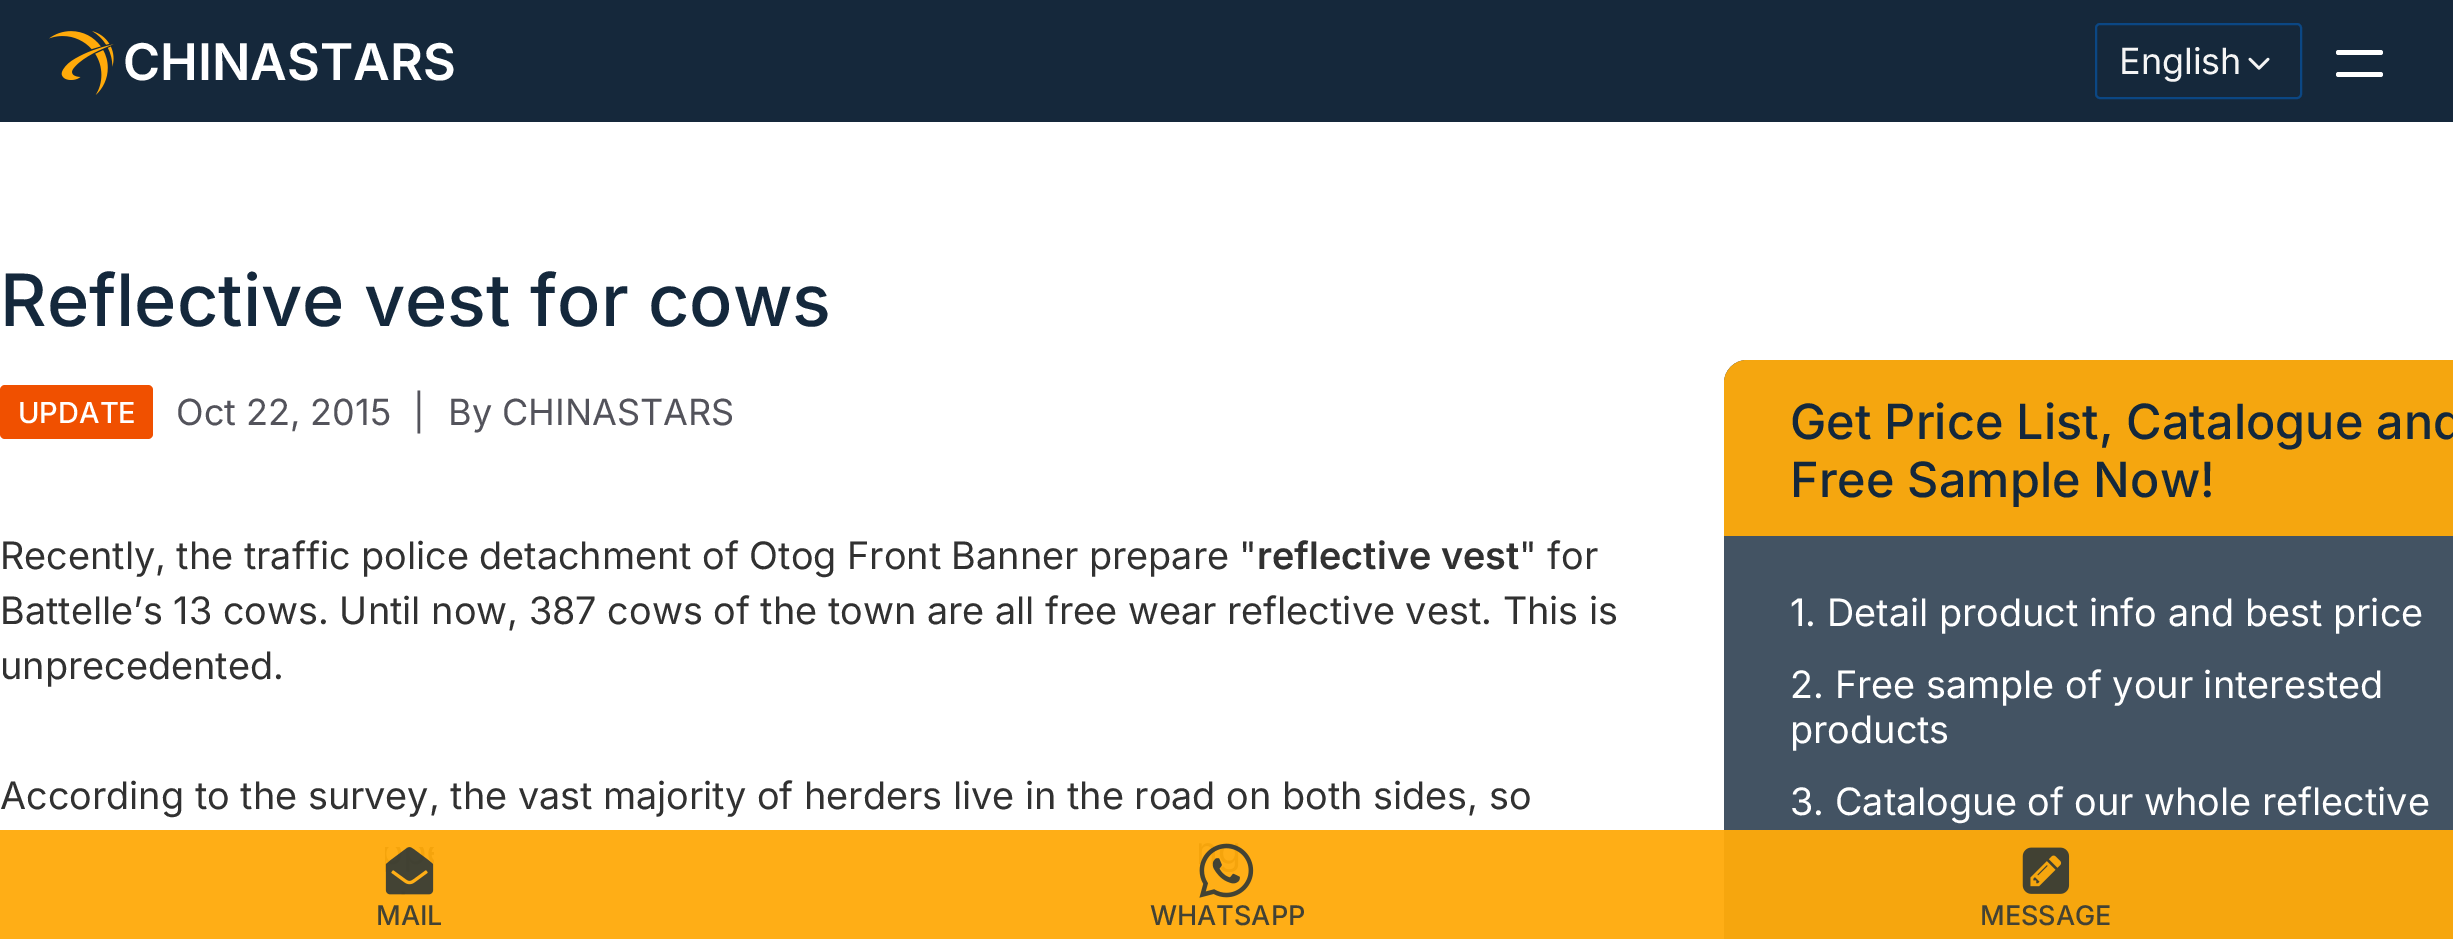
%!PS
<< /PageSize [2453 939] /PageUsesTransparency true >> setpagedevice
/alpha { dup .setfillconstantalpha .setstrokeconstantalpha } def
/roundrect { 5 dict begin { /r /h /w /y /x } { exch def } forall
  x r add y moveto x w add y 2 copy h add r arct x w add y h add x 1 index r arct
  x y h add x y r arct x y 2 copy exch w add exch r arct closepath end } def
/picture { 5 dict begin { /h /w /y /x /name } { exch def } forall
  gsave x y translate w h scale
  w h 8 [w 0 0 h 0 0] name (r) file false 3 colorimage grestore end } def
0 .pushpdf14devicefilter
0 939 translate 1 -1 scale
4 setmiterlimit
1 setgray
0 0 2453 939 rectfill
0.082 0.157 0.231 setrgbcolor
0 0 2453 122 rectfill
(img1.rgb) 49 31 65 64 picture
/Inter-SemiBold [50.5 0 0 -50.5 0 0] selectfont
1 setgray
123 80 moveto (CHINASTARS) show
0.043 0.278 0.518 setrgbcolor
2 setlinewidth
2096 24 205 74 4 roundrect stroke
/Inter-Regular [36 0 0 -36 0 0] selectfont
0.961 setgray
2119 74 moveto (English) show
(img2.rgb) 2248 57 22 13 picture
1 setgray
2336 50 47 5 2.5 roundrect fill
2336 72 47 5 2.5 roundrect fill
1 0.682 0.086 setrgbcolor
0 830 1724 109 rectfill
/Inter-Medium [72 0 0 -72 0 0] selectfont
0.078 0.157 0.235 setrgbcolor
0 326 moveto (Reflective vest for cows) show
0.941 0.314 0 setrgbcolor
0 385 153 54 5 roundrect fill
/Inter-Medium [29 0 0 -29 0 0] selectfont
1 setgray
18 423 moveto (UPDATE) show
/Inter-Regular [36 0 0 -36 0 0] selectfont
0.325 0.325 0.357 setrgbcolor
176 425 moveto (Oct 22, 2015) show
413 425 moveto (|) show
448 425 moveto (By CHINASTARS) show
/Inter-Regular [37.8 0 0 -37.8 0 0] selectfont
0.192 setgray
0 569 moveto -0.1 0 32 (Recently, the traffic police detachment of Otog Front Banner prepare ") widthshow
/Inter-SemiBold [37.8 0 0 -37.8 0 0] selectfont
1257 569 moveto (reflective vest) show
/Inter-Regular [37.8 0 0 -37.8 0 0] selectfont
1519 569 moveto (" for) show
0 624 moveto (Battelle’s 13 cows. Until now, 387 cows of the town are all free wear reflective vest. This is) show
0 679 moveto (unprecedented.) show
0 809 moveto (According to the survey, the vast majority of herders live in the road on both sides, so) show
0.263 0.325 0.388 setrgbcolor
1724 360 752 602 23 roundrect fill
0.965 0.651 0.055 setrgbcolor
1724 830 729 109 rectfill
0.95 alpha
1 0.667 0.039 setrgbcolor
newpath 1747 360 moveto 2453 360 lineto 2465.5 360 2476 370.5 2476 383 curveto 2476 536 lineto 1724 536 lineto 1724 383 lineto 1724 370.5 1734.5 360 1747 360 curveto closepath fill
/Inter-Medium [48.6 0 0 -48.6 0 0] selectfont
1 alpha
0.078 0.157 0.235 setrgbcolor
1790 439 moveto (Get Price List, Catalogue and) show
1790 497 moveto (Free Sample Now!) show
/Inter-Regular [37.8 0 0 -37.8 0 0] selectfont
1 setgray
1790 626 moveto (1. Detail product info and best price) show
1790 698 moveto (2. Free sample of your interested) show
1790 743 moveto (products) show
1790 815 moveto -0.1 0 32 (3. Catalogue of our whole reflective) widthshow
(img3.rgb) 385 847 49 48 picture
/Inter-Medium [27 0 0 -27 0 0] selectfont
0.263 0.259 0.204 setrgbcolor
376 925 moveto (MAIL) show
(img4.rgb) 1199 843 55 55 picture
1150 925 moveto (WHATSAPP) show
(img5.rgb) 2022 847 48 47 picture
1980 925 moveto (MESSAGE) show
.poppdf14devicefilter showpage
